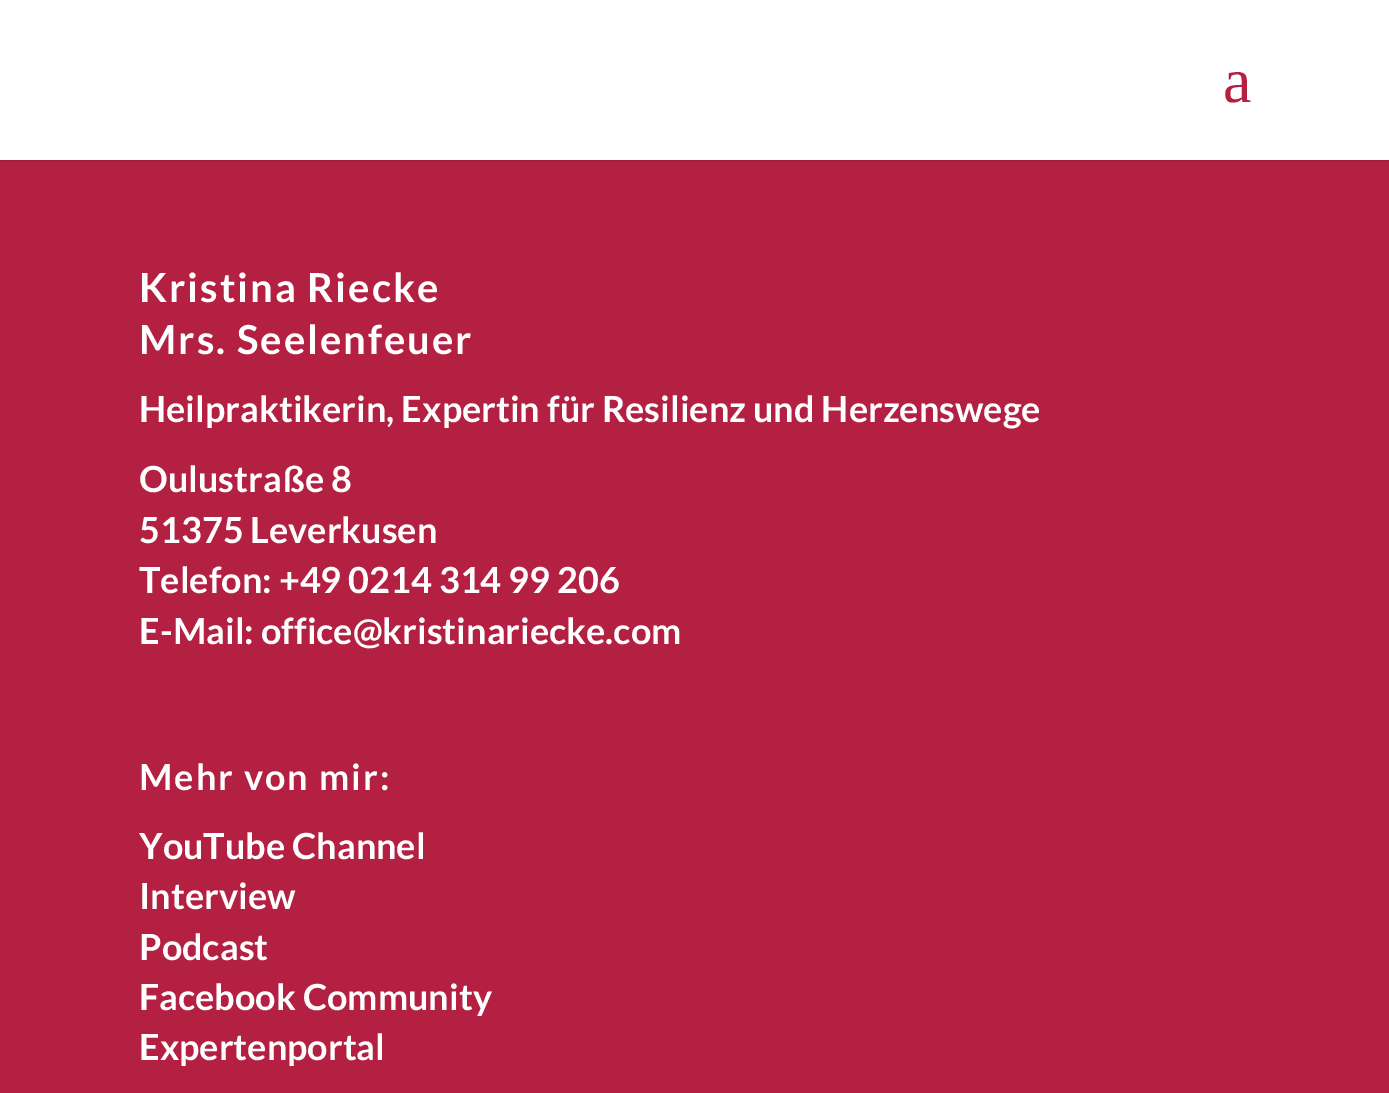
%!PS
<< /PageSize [1389 1093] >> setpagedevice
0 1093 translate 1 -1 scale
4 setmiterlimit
1 setgray
0 0 1389 1093 rectfill
0.635 0.114 0.231 setrgbcolor
0 160 1389 2 rectfill
/LiberationSerif-Regular [64 0 0 -64 0 0] selectfont
0.706 0.125 0.255 setrgbcolor
1223 102 moveto (a) show
0 162 1389 931 rectfill
/Lato-Bold [40 0 0 -40 0 0] selectfont
1 setgray
139 302 moveto 2 0 (Kristina Riecke) ashow
139 354 moveto 2 0 (Mrs. Seelenfeuer) ashow
/Lato-Bold [36 0 0 -36 0 0] selectfont
139 422 moveto (Heilpraktikerin, Expertin für Resilienz und Herzenswege) show
139 492 moveto (Oulustraße 8) show
139 543 moveto (51375 Leverkusen) show
139 593 moveto (Telefon: +49 0214 314 99 206) show
139 644 moveto (E-Mail: office@kristinariecke.com) show
139 790 moveto 2 0 (Mehr von mir:) ashow
139 859 moveto (YouTube Channel) show
139 909 moveto (Interview) show
139 960 moveto (Podcast) show
139 1010 moveto (Facebook Community) show
139 1060 moveto (Expertenportal) show
showpage
